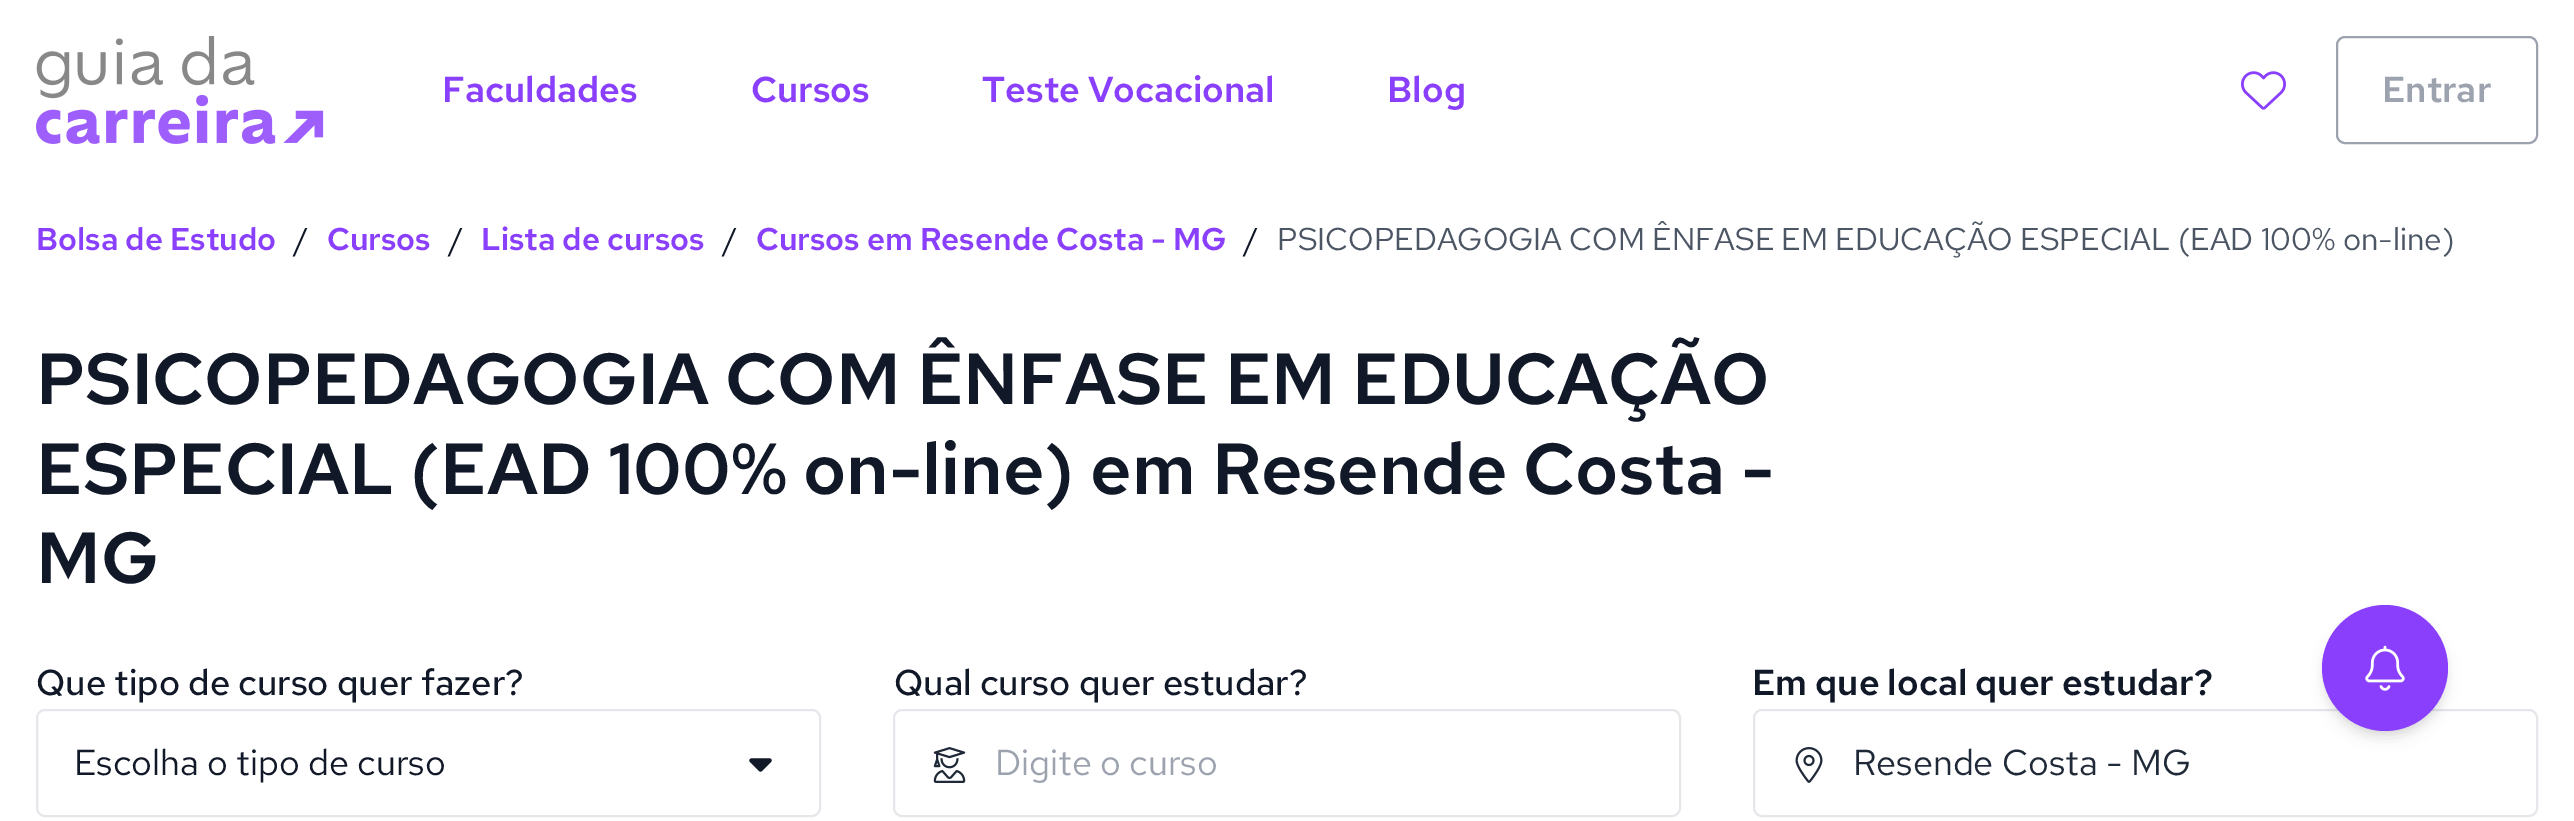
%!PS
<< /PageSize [2574 821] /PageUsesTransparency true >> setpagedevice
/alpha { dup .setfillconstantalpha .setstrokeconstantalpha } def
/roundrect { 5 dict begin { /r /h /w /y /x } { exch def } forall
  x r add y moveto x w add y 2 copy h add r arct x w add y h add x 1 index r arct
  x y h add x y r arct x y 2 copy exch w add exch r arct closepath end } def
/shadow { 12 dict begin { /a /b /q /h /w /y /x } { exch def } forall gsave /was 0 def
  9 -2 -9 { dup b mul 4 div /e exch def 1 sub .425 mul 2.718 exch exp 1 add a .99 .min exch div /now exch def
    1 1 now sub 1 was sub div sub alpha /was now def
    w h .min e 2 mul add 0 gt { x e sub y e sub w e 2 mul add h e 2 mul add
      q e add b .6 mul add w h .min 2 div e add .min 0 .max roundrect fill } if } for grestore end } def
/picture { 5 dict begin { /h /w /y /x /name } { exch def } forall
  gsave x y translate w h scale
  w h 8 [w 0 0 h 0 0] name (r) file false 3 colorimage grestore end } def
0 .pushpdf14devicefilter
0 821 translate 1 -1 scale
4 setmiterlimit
1 setgray
0 0 2574 821 rectfill
(img1.rgb) 36 36 288 108 picture
/RedHatText-SemiBold [36 0 0 -36 0 0] selectfont
0.541 0.247 0.988 setrgbcolor
442 102 moveto (Faculdades) show
751 102 moveto (Cursos) show
982 102 moveto (Teste Vocacional) show
1387 102 moveto (Blog) show
(img2.rgb) 2241 71 45 39 picture
0.612 0.639 0.686 setrgbcolor
2 setlinewidth
2337 37 200 106 8 roundrect stroke
2382 102 moveto (Entrar) show
/RedHatText-SemiBold [31.5 0 0 -31.5 0 0] selectfont
0.541 0.247 0.988 setrgbcolor
36 250 moveto (Bolsa de Estudo) show
/RedHatText-Regular [31.5 0 0 -31.5 0 0] selectfont
0.067 0.094 0.153 setrgbcolor
294 250 moveto (/) show
/RedHatText-SemiBold [31.5 0 0 -31.5 0 0] selectfont
0.541 0.247 0.988 setrgbcolor
327 250 moveto (Cursos) show
/RedHatText-Regular [31.5 0 0 -31.5 0 0] selectfont
0.067 0.094 0.153 setrgbcolor
449 250 moveto (/) show
/RedHatText-SemiBold [31.5 0 0 -31.5 0 0] selectfont
0.541 0.247 0.988 setrgbcolor
481 250 moveto (Lista de cursos) show
/RedHatText-Regular [31.5 0 0 -31.5 0 0] selectfont
0.067 0.094 0.153 setrgbcolor
723 250 moveto (/) show
/RedHatText-SemiBold [31.5 0 0 -31.5 0 0] selectfont
0.541 0.247 0.988 setrgbcolor
756 250 moveto (Cursos em Resende Costa - MG) show
/RedHatText-Regular [31.5 0 0 -31.5 0 0] selectfont
0.067 0.094 0.153 setrgbcolor
1244 250 moveto (/) show
0.294 0.333 0.388 setrgbcolor
1277 250 moveto (PSICOPEDAGOGIA COM ÊNFASE EM EDUCAÇÃO ESPECIAL \(EAD 100% on-line\)) show
/RedHatText-SemiBold [72 0 0 -72 0 0] selectfont
0.067 0.094 0.153 setrgbcolor
36 404 moveto (PSICOPEDAGOGIA COM ÊNFASE EM EDUCAÇÃO) show
36 494 moveto (ESPECIAL \(EAD 100% on-line\) em Resende Costa -) show
36 583 moveto (MG) show
/RedHatText-Medium [36 0 0 -36 0 0] selectfont
36 695 moveto (Que tipo de curso quer fazer?) show
0.898 0.906 0.922 setrgbcolor
37 710 783 106 8 roundrect stroke
/RedHatText-Regular [36 0 0 -36 0 0] selectfont
0.067 0.094 0.153 setrgbcolor
74 775 moveto (Escolha o tipo de curso) show
(img3.rgb) 749 758 23 14 picture
/RedHatText-Medium [36 0 0 -36 0 0] selectfont
894 695 moveto (Qual curso quer estudar?) show
0.898 0.906 0.922 setrgbcolor
894 710 786 106 8 roundrect stroke
(img4.rgb) 933 747 33 36 picture
/RedHatText-Regular [36 0 0 -36 0 0] selectfont
0.612 0.639 0.686 setrgbcolor
995 775 moveto (Digite o curso) show
/RedHatText-SemiBold [36 0 0 -36 0 0] selectfont
0.067 0.094 0.153 setrgbcolor
1752 695 moveto (Em que local quer estudar?) show
0.898 0.906 0.922 setrgbcolor
1754 710 783 106 8 roundrect stroke
(img5.rgb) 1795 747 28 36 picture
/RedHatText-Regular [36 0 0 -36 0 0] selectfont
0.122 0.161 0.216 setrgbcolor
1853 775 moveto (Resende Costa - MG) show
0 setgray
2327 614 117 117 58.5 4.5 0.1 shadow
2324 617 122 121 60.5 7 0.1 shadow
0.541 0.247 0.988 setrgbcolor
newpath 2385 668 63 0 360 arc closepath fill
(img6.rgb) 2365 645 40 46 picture
.poppdf14devicefilter showpage
